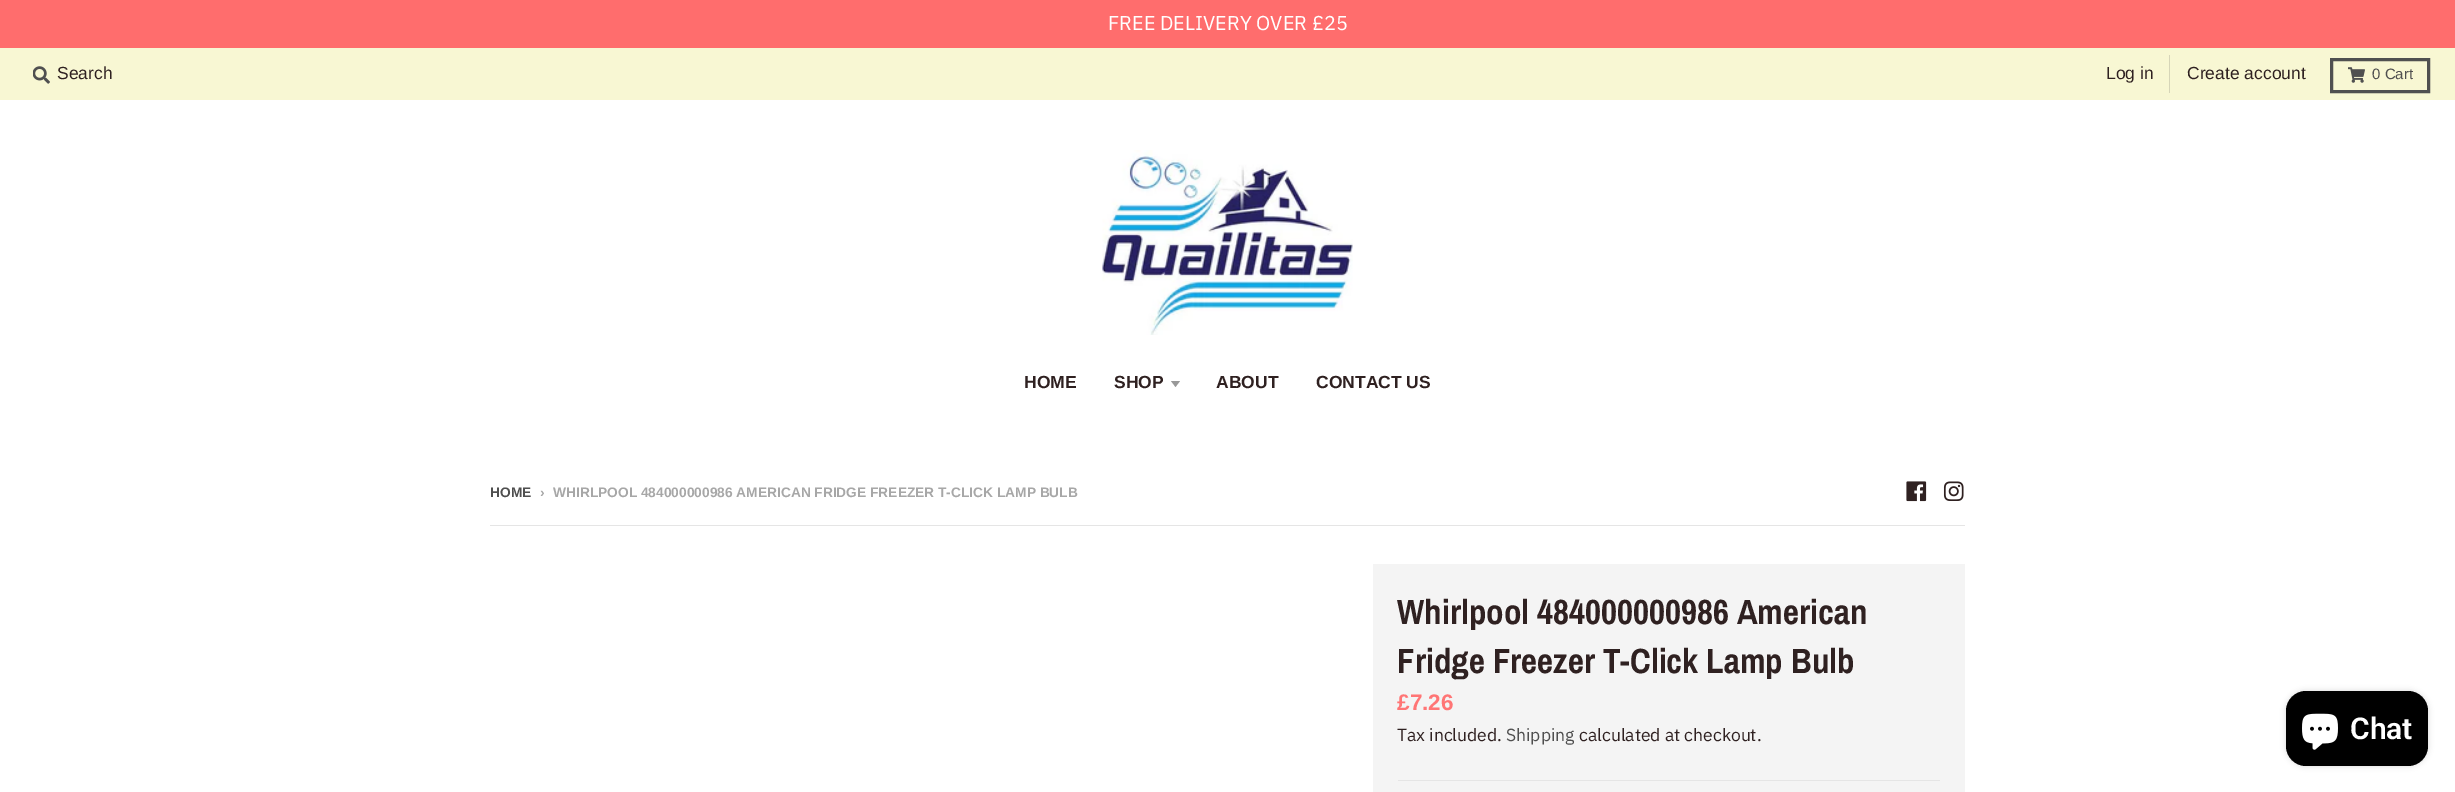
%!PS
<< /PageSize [2455 792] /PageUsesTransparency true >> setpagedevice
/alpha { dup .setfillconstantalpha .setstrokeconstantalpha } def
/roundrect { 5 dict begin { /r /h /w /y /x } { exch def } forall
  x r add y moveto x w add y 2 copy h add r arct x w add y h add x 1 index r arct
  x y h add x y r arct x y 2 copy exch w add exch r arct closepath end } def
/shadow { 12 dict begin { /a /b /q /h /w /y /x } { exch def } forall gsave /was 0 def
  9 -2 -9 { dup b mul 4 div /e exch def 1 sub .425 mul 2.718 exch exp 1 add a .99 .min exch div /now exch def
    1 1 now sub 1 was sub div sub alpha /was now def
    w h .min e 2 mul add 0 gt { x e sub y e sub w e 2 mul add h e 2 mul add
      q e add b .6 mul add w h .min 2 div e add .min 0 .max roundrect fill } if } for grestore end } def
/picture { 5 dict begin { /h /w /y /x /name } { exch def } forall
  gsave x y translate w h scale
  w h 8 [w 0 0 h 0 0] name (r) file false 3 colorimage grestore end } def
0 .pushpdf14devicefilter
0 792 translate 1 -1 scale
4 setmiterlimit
1 setgray
0 0 2455 792 rectfill
1 0.427 0.427 setrgbcolor
0 0 2455 48 rectfill
/IBMPlexSans-Regular [20 0 0 -20 0 0] selectfont
1 setgray
1108 30 moveto (FREE DELIVERY OVER £25) show
0.973 0.969 0.827 setrgbcolor
0 48 2455 52 rectfill
(img1.rgb) 33 66 17 18 picture
/Arimo-Regular [17.5 0 0 -17.5 0 0] selectfont
0.184 0.129 0.129 setrgbcolor
57 79 moveto (Search) show
0.839 0.835 0.722 setrgbcolor
2169 55 1 38 rectfill
0.184 0.129 0.129 setrgbcolor
2106 79 moveto (Log in) show
2187 79 moveto (Create account) show
0.314 setgray
3 setlinewidth
2331.5 59.5 97 32 rectstroke
(img2.rgb) 2348 67 17 16 picture
/Arimo-Regular [15 0 0 -15 0 0] selectfont
0.31 setgray
2372 79 moveto (0 Cart) show
(img3.rgb) 1102 150 251 185 picture
/Arimo-Bold [17.5 0 0 -17.5 0 0] selectfont
0.184 0.129 0.129 setrgbcolor
1024 388 moveto (HOME) show
1114 388 moveto (SHOP) show
0.6 setgray
newpath 1171 381 moveto 1175.5 387 lineto 1180 381 lineto closepath fill
0.184 0.129 0.129 setrgbcolor
1216 388 moveto (ABOUT) show
1316 388 moveto (CONTACT US) show
/Arimo-Bold [13.75 0 0 -13.75 0 0] selectfont
0.31 setgray
490 497 moveto (HOME) show
0.655 setgray
540 497 moveto (›) show
553 497 moveto (WHIRLPOOL 484000000986 AMERICAN FRIDGE FREEZER T-CLICK LAMP BULB) show
(img4.rgb) 1906 481 21 21 picture
(img5.rgb) 1943 481 21 20 picture
0.898 setgray
490 525 1475 1 rectfill
0.957 setgray
1373 564 592 228 rectfill
/ArchivoNarrow-Bold [35 0 0 -35 0 0] selectfont
0.184 0.129 0.129 setrgbcolor
1397 624 moveto (Whirlpool 484000000986 American) show
1397 673 moveto (Fridge Freezer T-Click Lamp Bulb) show
0.898 setgray
1398 780 542 1 rectfill
/Arimo-Bold [22.5 0 0 -22.5 0 0] selectfont
1 0.459 0.459 setrgbcolor
1397 710 moveto (£7.26) show
/IBMPlexSans-Regular [17.5 0 0 -17.5 0 0] selectfont
0.184 0.129 0.129 setrgbcolor
1397 741 moveto (Tax included.) show
0.31 setgray
1506 741 moveto (Shipping) show
0.184 0.129 0.129 setrgbcolor
1579 741 moveto (calculated at checkout.) show
0 setgray
2286 691 142 75 20 3 0.15 shadow
2286 691 142 75 20 roundrect fill
(img6.rgb) 2302 713 36 37 picture
/Roboto-SemiBold [30 0 0 -30 0 0] selectfont
1 setgray
2350 739 moveto (Chat) show
.poppdf14devicefilter showpage
